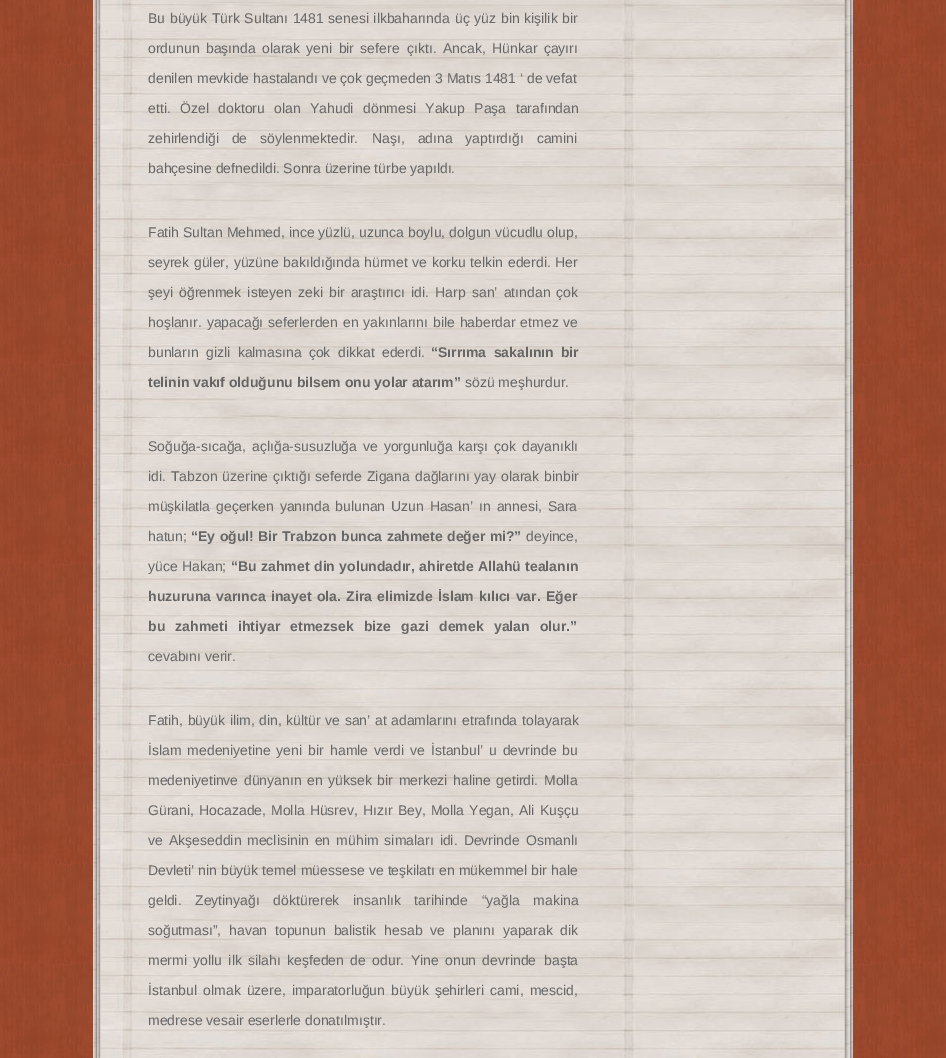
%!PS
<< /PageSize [946 1058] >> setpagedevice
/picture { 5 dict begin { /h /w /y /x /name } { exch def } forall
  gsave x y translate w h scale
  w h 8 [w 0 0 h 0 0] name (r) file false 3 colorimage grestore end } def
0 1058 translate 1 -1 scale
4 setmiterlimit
1 setgray
0 0 946 1058 rectfill
(img1.rgb) 0 0 946 1058 picture
(img2.rgb) 93 0 760 1058 picture
/LiberationSans-Regular [14 0 0 -14 0 0] selectfont
0.4 setgray
148 23 moveto 0.75 0 32 (Bu büyük Türk Sultanı 1481 senesi ilkbaharında) widthshow
455 23 moveto 0.75 0 32 (üç yüz bin kişilik bir) widthshow
148 53 moveto 2.5 0 32 (ordunun başında olarak yeni bir sefere) widthshow
407 53 moveto 2.5 0 32 (çıktı. Ancak, Hünkar çayırı) widthshow
148 83 moveto (denilen mevkide hastalandı ve çok geçmeden 3 Matıs 1481 ‘ de vefat) show
148 113 moveto 5.5 0 32 (etti. Özel doktoru olan) widthshow
310 113 moveto 5.5 0 32 (Yahudi dönmesi Yakup Paşa tarafından) widthshow
148 143 moveto 9 0 32 (zehirlendiği de söylenmektedir.) widthshow
372 143 moveto 9 0 32 (Naşı, adına yaptırdığı camini) widthshow
148 173 moveto (bahçesine defnedildi. Sonra üzerine türbe yapıldı.) show
148 237 moveto (Fatih Sultan Mehmed, ince yüzlü, uzunca boylu, dolgun vücudlu olup,) show
148 267 moveto 0.75 0 32 (seyrek güler, yüzüne bakıldığında) widthshow
364 267 moveto 0.75 0 32 (hürmet ve korku telkin ederdi. Her) widthshow
148 297 moveto 2.25 0 32 (şeyi öğrenmek isteyen zeki) widthshow
329 297 moveto 2.25 0 32 (bir araştırıcı idi. Harp san’ atından çok) widthshow
148 327 moveto 1 0 32 (hoşlanır. yapacağı) widthshow
268 327 moveto 1 0 32 (seferlerden en yakınlarını bile haberdar etmez ve) widthshow
148 357 moveto (bunların) show
206 357 moveto 3.5 0 32 (gizli kalmasına çok dikkat ederdi.) widthshow
/LiberationSans-Bold [14 0 0 -14 0 0] selectfont
431 357 moveto 3.5 0 32 (“Sırrıma sakalının bir) widthshow
148 387 moveto (telinin vakıf olduğunu bilsem onu yolar atarım”) show
/LiberationSans-Regular [14 0 0 -14 0 0] selectfont
465 387 moveto (sözü meşhurdur.) show
148 451 moveto 2 0 32 (Soğuğa-sıcağa, açlığa-susuzluğa ve yorgunluğa) widthshow
458 451 moveto 2 0 32 (karşı çok dayanıklı) widthshow
148 481 moveto 1 0 32 (idi. Tabzon üzerine çıktığı seferde Zigana) widthshow
415 481 moveto 1 0 32 (dağlarını yay olarak binbir) widthshow
148 511 moveto 2 0 32 (müşkilatla geçerken yanında bulunan) widthshow
391 511 moveto 2 0 32 (Uzun Hasan’ ın annesi, Sara) widthshow
148 541 moveto (hatun;) show
/LiberationSans-Bold [14 0 0 -14 0 0] selectfont
191 541 moveto 0.5 0 32 (“Ey oğul! Bir Trabzon) widthshow
341 541 moveto 0.5 0 32 (bunca zahmete değer mi?”) widthshow
/LiberationSans-Regular [14 0 0 -14 0 0] selectfont
526 541 moveto (deyince,) show
148 571 moveto 0.5 0 32 (yüce Hakan;) widthshow
/LiberationSans-Bold [14 0 0 -14 0 0] selectfont
231 571 moveto 0.5 0 32 (“Bu zahmet) widthshow
314 571 moveto 0.5 0 32 (din yolundadır, ahiretde Allahü tealanın) widthshow
148 601 moveto 1.5 0 32 (huzuruna varınca) widthshow
271 601 moveto 1.5 0 32 (inayet ola. Zira elimizde İslam kılıcı var. Eğer) widthshow
148 631 moveto 6.5 0 32 (bu zahmeti) widthshow
238 631 moveto 6.5 0 32 (ihtiyar etmezsek bize gazi demek yalan olur.”) widthshow
/LiberationSans-Regular [14 0 0 -14 0 0] selectfont
148 661 moveto (cevabını verir.) show
148 725 moveto 0.75 0 32 (Fatih, büyük ilim, din, kültür ve san’ at) widthshow
391 725 moveto 1 0 32 (adamlarını etrafında tolayarak) widthshow
148 755 moveto 2 0 32 (İslam medeniyetine yeni bir) widthshow
330 755 moveto 2 0 32 (hamle verdi ve İstanbul’ u devrinde bu) widthshow
148 785 moveto 1.75 0 32 (medeniyetinve dünyanın) widthshow
307 785 moveto 1.75 0 32 (en yüksek bir merkezi haline getirdi. Molla) widthshow
148 815 moveto 1.25 0 32 (Gürani, Hocazade,) widthshow
271 815 moveto 1.25 0 32 (Molla Hüsrev, Hızır Bey, Molla Yegan, Ali Kuşçu) widthshow
148 845 moveto 2.25 0 32 (ve Akşeseddin) widthshow
247 845 moveto 2.25 0 32 (meclisinin en mühim simaları idi. Devrinde Osmanlı) widthshow
148 875 moveto (Devleti’) show
198 875 moveto 0.25 0 32 (nin büyük temel müessese ve teşkilatı en mükemmel bir hale) widthshow
148 905 moveto 9.75 0 32 (geldi. Zeytinyağı döktürerek insanlık tarihinde “yağla makina) widthshow
148 935 moveto 4 0 32 (soğutması”, havan topunun balistik hesab ve planını yaparak) widthshow
560 935 moveto (dik) show
148 965 moveto 2.5 0 32 (mermi yollu ilk silahı keşfeden de odur. Yine onun devrinde) widthshow
544 965 moveto (başta) show
148 995 moveto 2.25 0 32 (İstanbul olmak üzere, imparatorluğun büyük şehirleri) widthshow
490 995 moveto 2.25 0 32 (cami, mescid,) widthshow
148 1025 moveto (medrese vesair eserlerle donatılmıştır.) show
showpage
